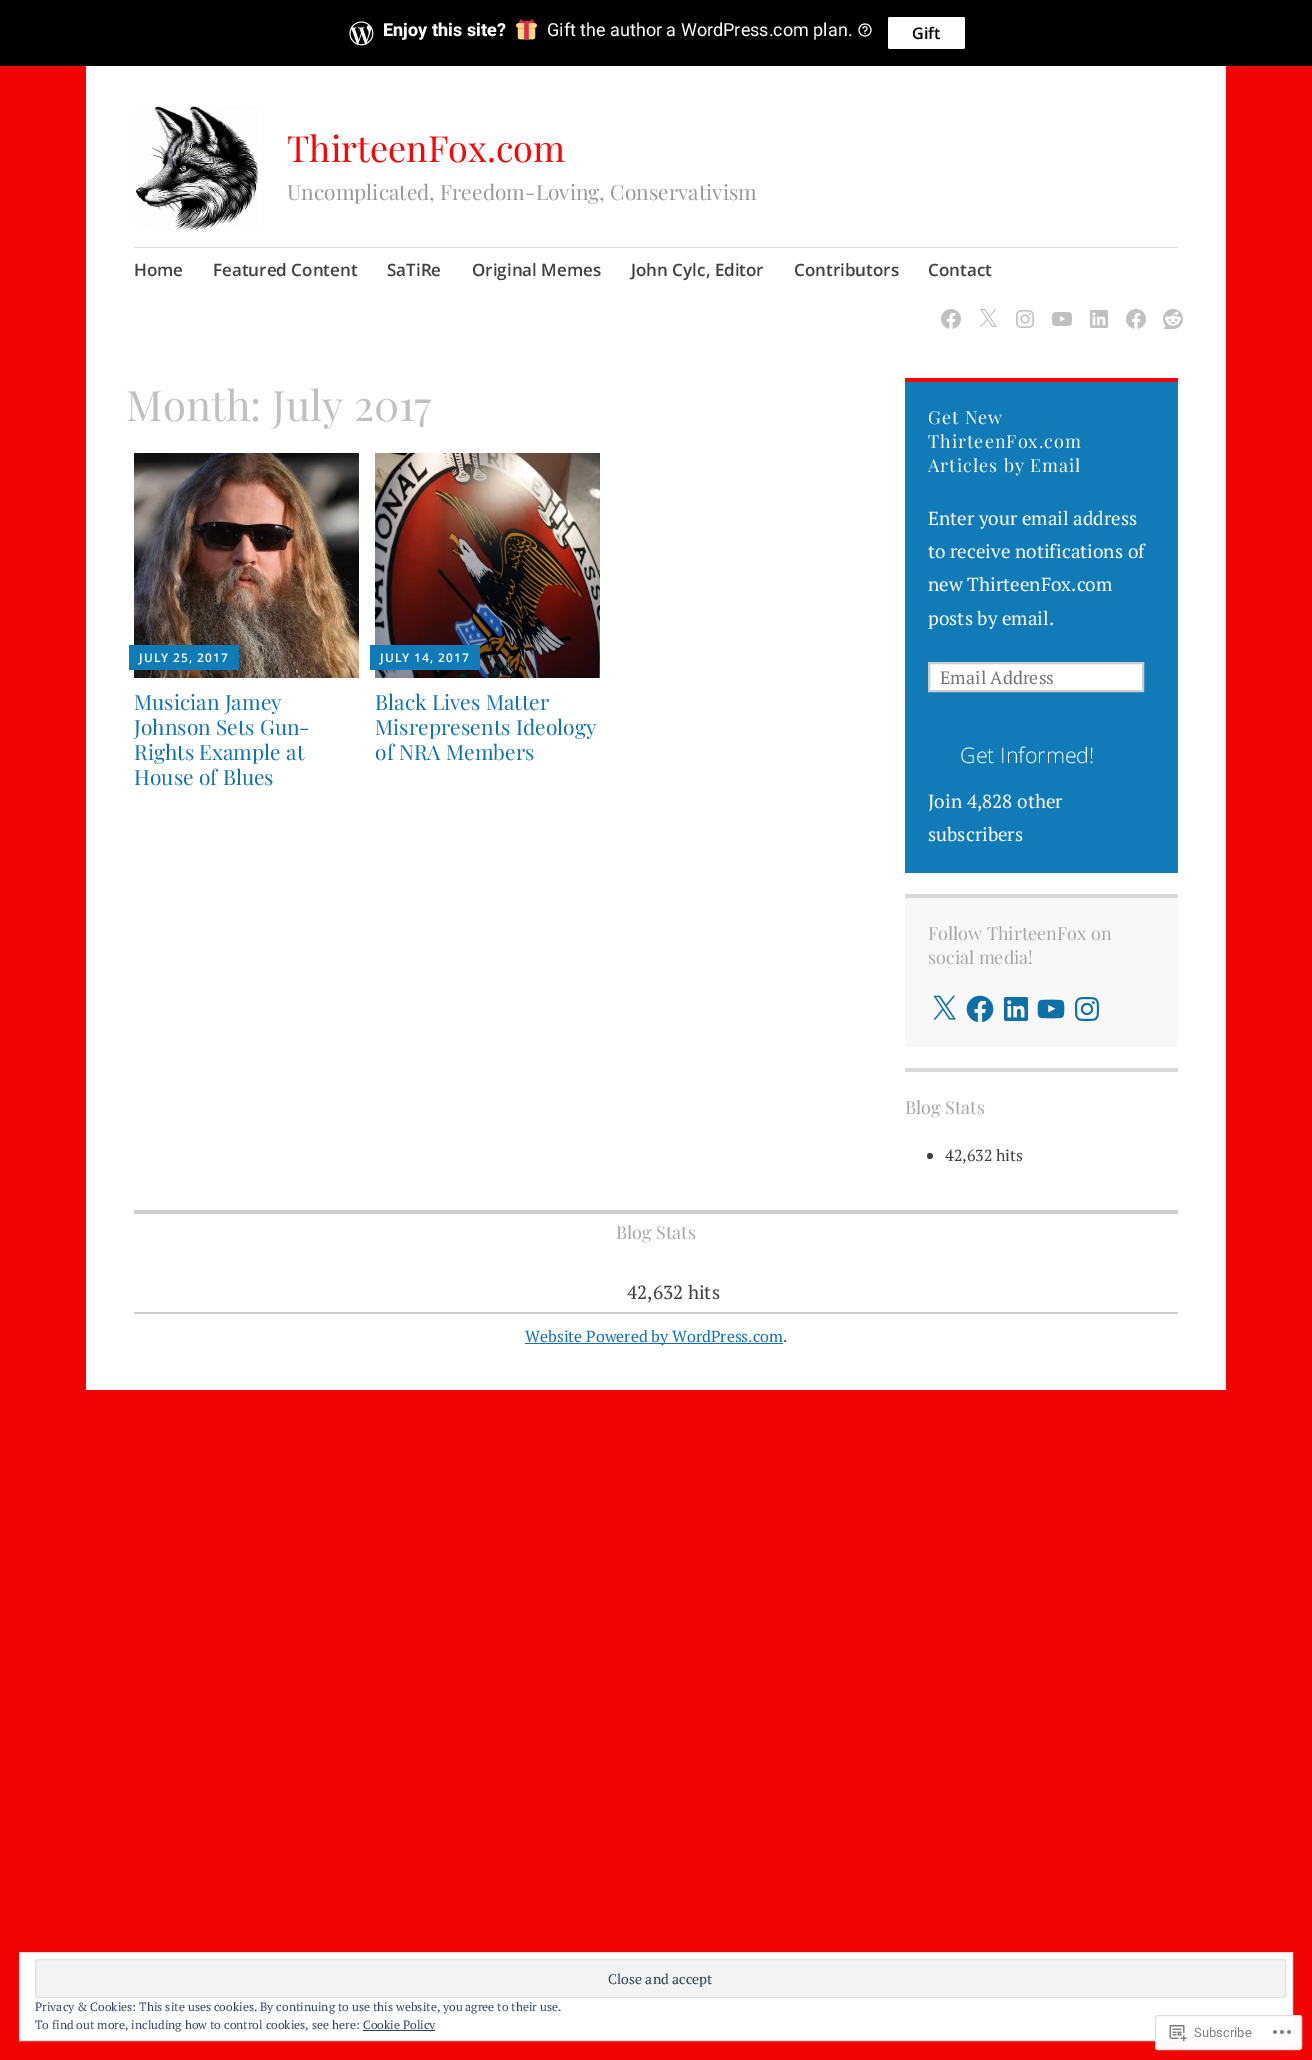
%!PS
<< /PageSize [1312 2060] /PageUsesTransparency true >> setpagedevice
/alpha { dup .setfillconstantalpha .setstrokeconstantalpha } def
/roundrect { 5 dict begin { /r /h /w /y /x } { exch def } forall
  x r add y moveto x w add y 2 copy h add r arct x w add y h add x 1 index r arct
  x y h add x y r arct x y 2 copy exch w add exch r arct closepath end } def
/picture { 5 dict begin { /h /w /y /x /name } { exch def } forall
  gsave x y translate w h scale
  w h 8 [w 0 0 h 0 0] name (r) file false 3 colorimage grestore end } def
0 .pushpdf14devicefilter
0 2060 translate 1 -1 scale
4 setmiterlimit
0.945 0.012 0.012 setrgbcolor
0 0 1312 2060 rectfill
0 setgray
0 0 1312 66 rectfill
(img1.rgb) 349 21 25 25 picture
/Roboto-ExtraBold [18 0 0 -18 0 0] selectfont
1 setgray
383 36 moveto (Enjoy this site?) show
(img2.rgb) 516 19 21 21 picture
/Roboto-Regular [18 0 0 -18 0 0] selectfont
547 36 moveto (Gift the author a WordPress.com plan.) show
(img3.rgb) 858 23 14 14 picture
888 17 77 32 2 roundrect fill
/OpenSans-SemiBold [16 0 0 -16 0 0] selectfont
0 setgray
912 39 moveto (Gift) show
1 setgray
86 66 1140 1324 rectfill
(img4.rgb) 135 106 124 125 picture
/PlayfairDisplay-Regular [36 0 0 -36 0 0] selectfont
0.976 0.02 0.02 setrgbcolor
287 162 moveto (ThirteenFox.com) show
/PlayfairDisplay-Regular [21 0 0 -21 0 0] selectfont
0.6 setgray
287 200 moveto (Uncomplicated, Freedom-Loving, Conservativism) show
0.851 setgray
134 247 1044 1 rectfill
/OpenSans-SemiBold [17 0 0 -17 0 0] selectfont
0.251 setgray
134 276 moveto (Home) show
213 276 moveto (Featured Content) show
387 276 moveto (SaTiRe) show
472 276 moveto (Original Memes) show
631 276 moveto (John Cylc, Editor) show
794 276 moveto (Contributors) show
928 276 moveto (Contact) show
(img5.rgb) 941 309 20 20 picture
(img6.rgb) 980 309 17 18 picture
(img7.rgb) 1016 310 18 18 picture
(img8.rgb) 1052 312 20 14 picture
(img9.rgb) 1090 310 18 18 picture
(img5.rgb) 1126 309 20 20 picture
(img10.rgb) 1163 309 20 20 picture
/PlayfairDisplay-Regular [42 0 0 -42 0 0] selectfont
0.753 setgray
126 421 moveto (Month: July 2017) show
(img11.rgb) 134 453 225 225 picture
0.067 0.482 0.722 setrgbcolor
129 645 110 25 rectfill
/OpenSans-SemiBold [12 0 0 -12 0 0] selectfont
1 setgray
139 662 moveto 1 0 (JULY 25, 2017) ashow
/PlayfairDisplay-Regular [21 0 0 -21 0 0] selectfont
0.063 0.451 0.675 setrgbcolor
134 710 moveto (Musician Jamey) show
134 735 moveto (Johnson Sets Gun-) show
134 760 moveto (Rights Example at) show
134 785 moveto (House of Blues) show
(img12.rgb) 375 453 225 225 picture
0.067 0.482 0.722 setrgbcolor
370 645 110 25 rectfill
/OpenSans-SemiBold [12 0 0 -12 0 0] selectfont
1 setgray
380 662 moveto 1 0 (JULY 14, 2017) ashow
/PlayfairDisplay-Regular [21 0 0 -21 0 0] selectfont
0.063 0.451 0.675 setrgbcolor
375 710 moveto (Black Lives Matter) show
375 735 moveto (Misrepresents Ideology) show
375 760 moveto (of NRA Members) show
0.067 0.482 0.722 setrgbcolor
905 382 273 491 rectfill
0.976 0.02 0.02 setrgbcolor
905 378 273 4 rectfill
/PlayfairDisplay-Regular [18 0 0 -18 0 0] selectfont
1 setgray
928 424 moveto 1 0 (Get New) ashow
928 448 moveto 1 0 (ThirteenFox.com) ashow
928 472 moveto 1 0 (Articles by Email) ashow
/PTSerif-Regular [19 0 0 -19 0 0] selectfont
928 525 moveto (Enter your email address) show
928 558 moveto (to receive notifications of) show
928 591 moveto (new ThirteenFox.com) show
928 625 moveto (posts by email.) show
newpath 929 663 moveto 1143 663 lineto 1143 691 lineto 929 691 lineto closepath gsave fill grestore
0.8 setgray
2 setlinewidth
stroke
/PTSerif-Regular [18 0 0 -18 0 0] selectfont
0.459 setgray
940 684 moveto (Email Address) show
/OpenSans-Light [21.5 0 0 -21.5 0 0] selectfont
1 setgray
960 763 moveto (Get Informed!) show
/PTSerif-Regular [19 0 0 -19 0 0] selectfont
928 808 moveto (Join 4,828 other) show
928 841 moveto (subscribers) show
0.973 setgray
905 898 273 149 rectfill
0.851 setgray
905 894 273 4 rectfill
/PlayfairDisplay-Regular [18 0 0 -18 0 0] selectfont
0.651 setgray
928 940 moveto (Follow ThirteenFox on) show
928 964 moveto (social media!) show
(img13.rgb) 933 995 23 25 picture
(img14.rgb) 966 995 28 28 picture
(img15.rgb) 1004 997 24 24 picture
(img16.rgb) 1037 999 28 20 picture
(img17.rgb) 1075 997 24 24 picture
0.851 setgray
905 1068 273 4 rectfill
0.651 setgray
905 1114 moveto (Blog Stats) show
0.251 setgray
newpath 930 1156 3 0 360 arc closepath fill
/PTSerif-Regular [16 0 0 -16 0 0] selectfont
945 1161 moveto (42,632 hits) show
0.8 setgray
134 1210 1044 4 rectfill
/PlayfairDisplay-Regular [18 0 0 -18 0 0] selectfont
0.651 setgray
616 1239 moveto (Blog Stats) show
/PTSerif-Regular [19 0 0 -19 0 0] selectfont
0.251 setgray
627 1299 moveto (42,632 hits) show
0.8 setgray
134 1312 1044 2 rectfill
0.063 0.451 0.675 setrgbcolor
525 1343 258 1 rectfill
/PTSerif-Regular [16 0 0 -16 0 0] selectfont
525 1342 moveto (Website Powered by WordPress.com) show
0.251 setgray
783 1342 moveto (.) show
1 setgray
newpath 19.5 1952.5 moveto 1292.5 1952.5 lineto 1292.5 2040.5 lineto 19.5 2040.5 lineto closepath gsave fill grestore
0.871 setgray
1 setlinewidth
stroke
0.953 setgray
35.5 1959.5 1250 38 2.5 roundrect gsave fill grestore
0.871 setgray
stroke
/PTSerif-Regular [14 0 0 -14 0 0] selectfont
0.18 0.267 0.325 setrgbcolor
608 1984 moveto (Close and accept) show
/PTSerif-Regular [12 0 0 -12 0 0] selectfont
0.18 0.267 0.404 setrgbcolor
35 2011 moveto (Privacy & Cookies: This site uses cookies. By continuing to use this website, you agree to their use.) show
35 2029 moveto (To find out more, including how to control cookies, see here:) show
363 2030 72 1 rectfill
363 2029 moveto (Cookie Policy) show
0.98 alpha
1 setgray
1155 2015 147 35 3 roundrect fill
0.863 0.863 0.871 setrgbcolor
1155.5 2015.5 146 34 2.5 roundrect stroke
1 alpha
(img18.rgb) 1169 2025 18 17 picture
/Roboto-Regular [13 0 0 -13 0 0] selectfont
0.482 0.498 0.522 setrgbcolor
1194 2037 moveto (Subscribe) show
(img19.rgb) 1273 2030 18 4 picture
.poppdf14devicefilter showpage
